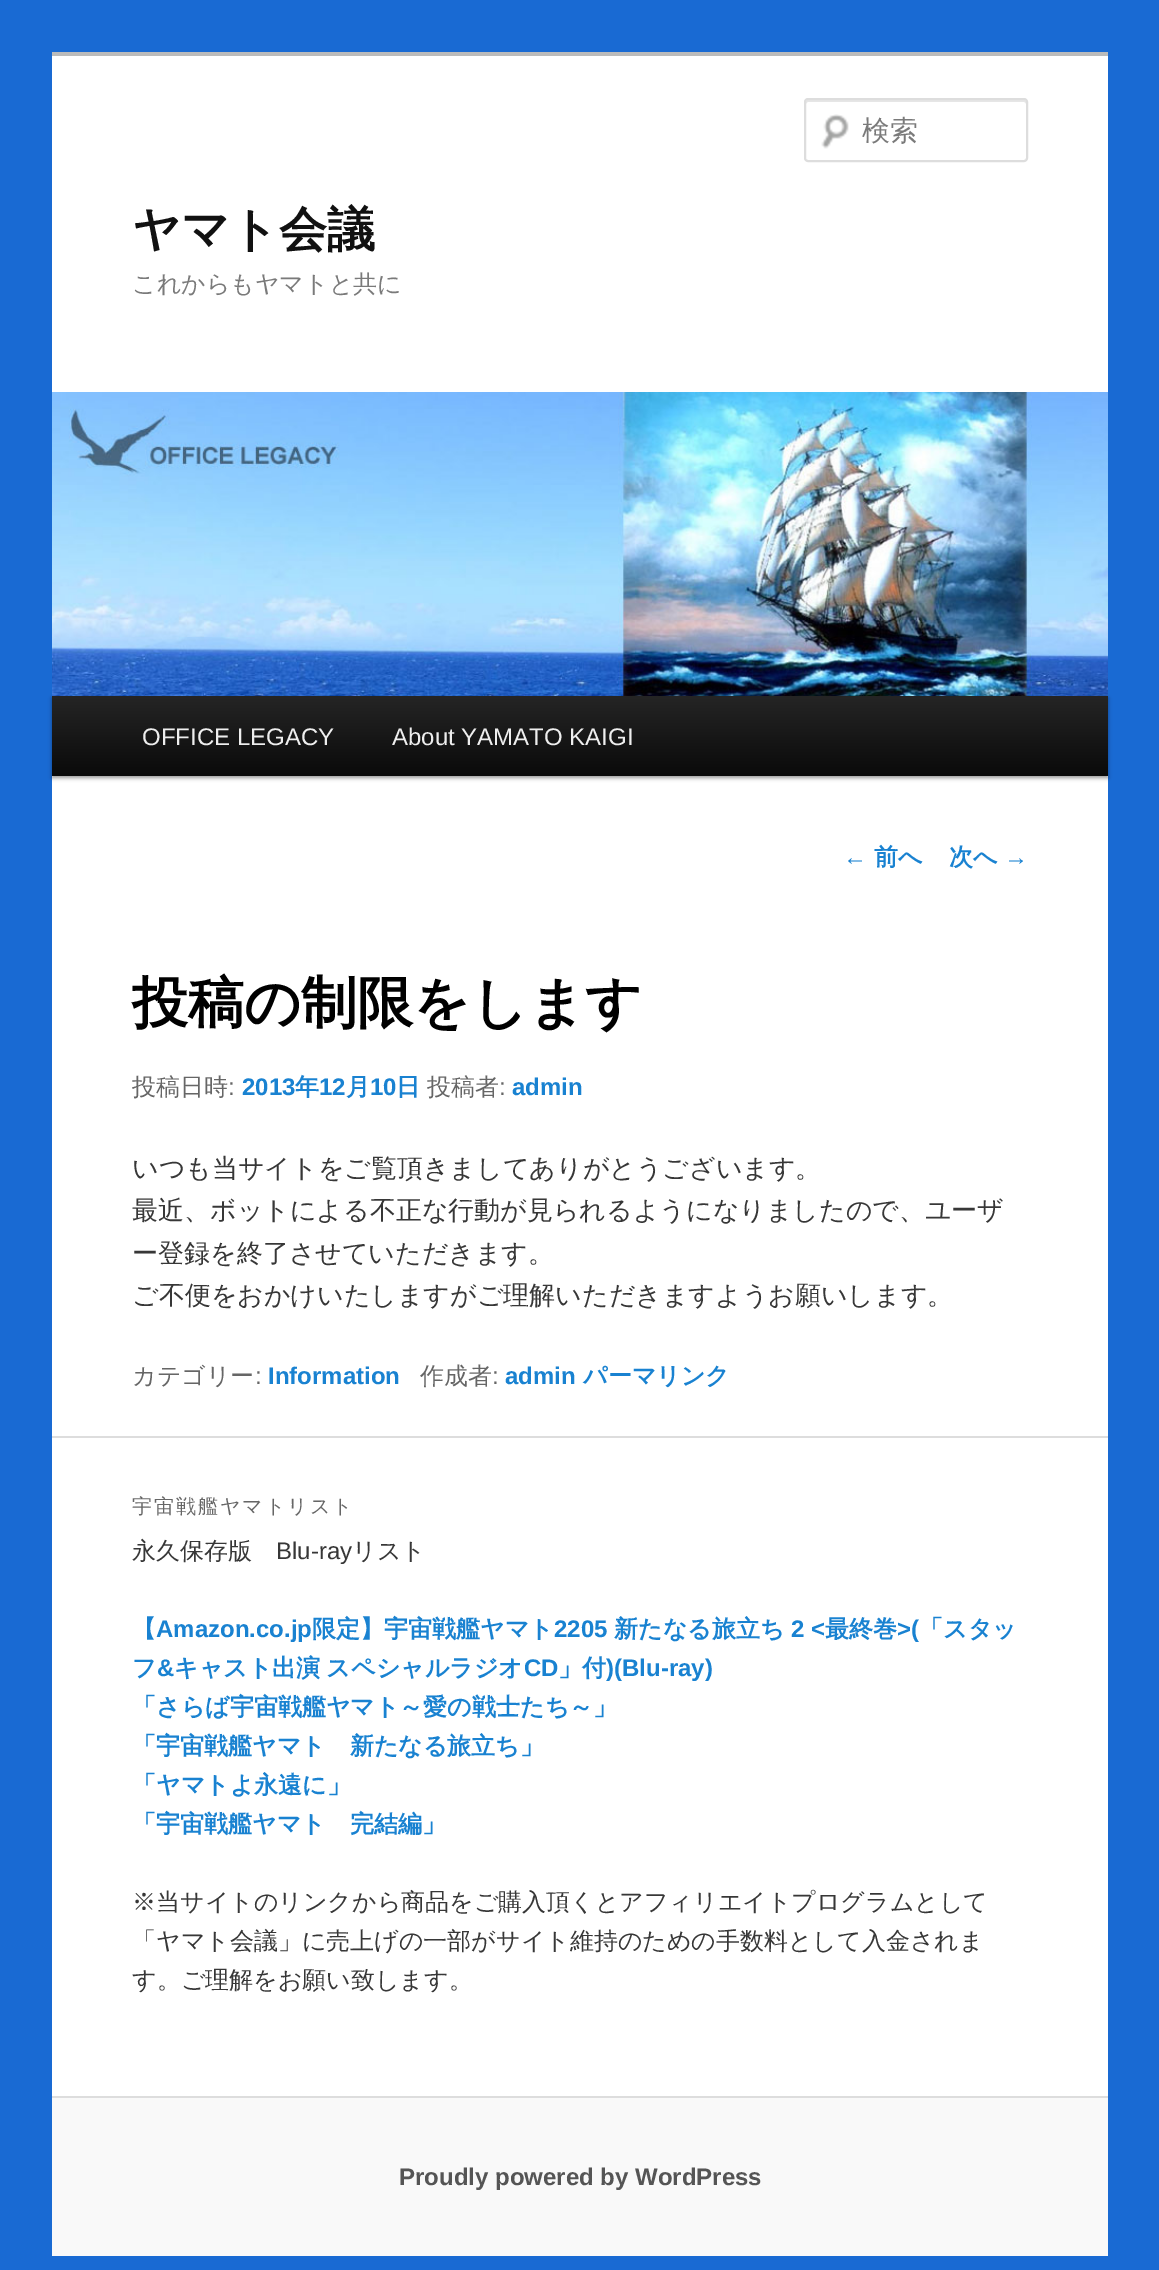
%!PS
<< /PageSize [1159 2270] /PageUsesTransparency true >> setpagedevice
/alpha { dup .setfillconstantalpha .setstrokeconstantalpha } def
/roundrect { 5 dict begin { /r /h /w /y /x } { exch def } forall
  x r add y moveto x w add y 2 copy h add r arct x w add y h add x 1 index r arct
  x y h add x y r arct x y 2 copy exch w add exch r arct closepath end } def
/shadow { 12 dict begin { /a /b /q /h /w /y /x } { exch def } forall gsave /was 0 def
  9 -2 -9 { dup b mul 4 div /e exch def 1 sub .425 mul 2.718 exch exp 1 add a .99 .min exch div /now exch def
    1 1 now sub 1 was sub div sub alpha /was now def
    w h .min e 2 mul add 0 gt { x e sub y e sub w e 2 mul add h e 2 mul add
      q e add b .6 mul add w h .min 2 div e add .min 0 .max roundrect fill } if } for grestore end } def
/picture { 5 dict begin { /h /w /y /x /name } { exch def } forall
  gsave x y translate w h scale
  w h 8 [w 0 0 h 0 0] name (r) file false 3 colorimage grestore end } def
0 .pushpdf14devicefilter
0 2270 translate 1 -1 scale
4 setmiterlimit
0.098 0.416 0.827 setrgbcolor
0 0 1159 2270 rectfill
1 setgray
52 56 1056 2040 rectfill
0.733 setgray
52 52 1056 4 rectfill
(img1.rgb) 821 114 28 35 picture
0.902 setgray
newpath 808 102 moveto 1024 102 lineto 1025 102 1026 103 1026 104 curveto 1026 102 lineto 1026 101 1025 100 1024 100 curveto 808 100 lineto 807 100 806 101 806 102 curveto 806 104 lineto 806 103 807 102 808 102 curveto closepath fill
0.867 setgray
2 setlinewidth
805 99 222 62 3 roundrect stroke
/WenQuanYiZenHei-Medium [28 0 0 -28 0 0] selectfont
0.478 setgray
862 140 moveto (検索) show
/WenQuanYiZenHei-Bold [48 0 0 -48 0 0] selectfont
0.067 setgray
132 246 moveto (ヤマト会議) show
/WenQuanYiZenHei-Medium [24 0 0 -24 0 0] selectfont
0.478 setgray
132 292 moveto (これからもヤマトと共に) show
0 setgray
52 698 1056 80 0 2 0.4 shadow
(img2.rgb) 52 392 1056 304 picture
gsave newpath 52 696 moveto 1108 696 lineto 1108 776 lineto 52 776 lineto closepath clip newpath
<< /ShadingType 2 /ColorSpace /DeviceRGB /Coords [580 696 580 776] /Extend [true true] /Function << /FunctionType 2 /Domain [0 1] /C0 [0.145 0.145 0.145] /C1 [0.039 0.039 0.039] /N 1 >> >> shfill grestore
/LiberationSans-Regular [24 0 0 -24 0 0] selectfont
0.933 setgray
142 745 moveto (OFFICE LEGACY) show
392 745 moveto (About YAMATO KAIGI) show
0.098 0.51 0.82 setrgbcolor
843 865 moveto (←) show
/WenQuanYiZenHei-Bold [24 0 0 -24 0 0] selectfont
874 865 moveto (前へ) show
949 865 moveto (次へ) show
/LiberationSans-Regular [24 0 0 -24 0 0] selectfont
1004 865 moveto (→) show
/WenQuanYiZenHei-Bold [56 0 0 -56 0 0] selectfont
0 setgray
132 1022 moveto (投稿の制限をします) show
/WenQuanYiZenHei-Medium [24 0 0 -24 0 0] selectfont
0.4 setgray
132 1095 moveto (投稿日時) show
/LiberationSans-Regular [24 0 0 -24 0 0] selectfont
228 1095 moveto (:) show
/LiberationSans-Bold [24 0 0 -24 0 0] selectfont
0.098 0.51 0.82 setrgbcolor
242 1095 moveto (2013) show
/WenQuanYiZenHei-Bold [24 0 0 -24 0 0] selectfont
295 1095 moveto (年) show
/LiberationSans-Bold [24 0 0 -24 0 0] selectfont
319 1095 moveto (12) show
/WenQuanYiZenHei-Bold [24 0 0 -24 0 0] selectfont
346 1095 moveto (月) show
/LiberationSans-Bold [24 0 0 -24 0 0] selectfont
370 1095 moveto (10) show
/WenQuanYiZenHei-Bold [24 0 0 -24 0 0] selectfont
396 1095 moveto (日) show
/WenQuanYiZenHei-Medium [24 0 0 -24 0 0] selectfont
0.4 setgray
427 1095 moveto (投稿者) show
/LiberationSans-Regular [24 0 0 -24 0 0] selectfont
499 1095 moveto (:) show
/LiberationSans-Bold [24 0 0 -24 0 0] selectfont
0.098 0.51 0.82 setrgbcolor
512 1095 moveto (admin) show
/WenQuanYiZenHei-Medium [26 0 0 -26 0 0] selectfont
0.216 setgray
132 1177 moveto (いつも当サイトをご覧頂きましてありがとうございます。) show
132 1219 moveto (最近、ボットによる不正な行動が見られるようになりましたので、ユーザ) show
132 1262 moveto (ー登録を終了させていただきます。) show
132 1304 moveto (ご不便をおかけいたしますがご理解いただきますようお願いします。) show
/WenQuanYiZenHei-Medium [24 0 0 -24 0 0] selectfont
0.4 setgray
132 1384 moveto (カテゴリー) show
/LiberationSans-Regular [24 0 0 -24 0 0] selectfont
255 1384 moveto (:) show
/LiberationSans-Bold [24 0 0 -24 0 0] selectfont
0.098 0.51 0.82 setrgbcolor
268 1384 moveto (Information) show
/WenQuanYiZenHei-Medium [24 0 0 -24 0 0] selectfont
0.4 setgray
420 1384 moveto (作成者) show
/LiberationSans-Regular [24 0 0 -24 0 0] selectfont
492 1384 moveto (:) show
/LiberationSans-Bold [24 0 0 -24 0 0] selectfont
0.098 0.51 0.82 setrgbcolor
505 1384 moveto (admin) show
/WenQuanYiZenHei-Bold [24 0 0 -24 0 0] selectfont
583 1384 moveto (パーマリンク) show
0.867 setgray
52 1436 1056 2 rectfill
/WenQuanYiZenHei-Medium [20 0 0 -20 0 0] selectfont
0.4 setgray
132 1513 moveto 2 0 (宇宙戦艦ヤマトリスト) ashow
/WenQuanYiZenHei-Medium [24 0 0 -24 0 0] selectfont
0.216 setgray
132 1559 moveto (永久保存版) show
/LiberationSans-Regular [24 0 0 -24 0 0] selectfont
276 1559 moveto (Blu-ray) show
/WenQuanYiZenHei-Medium [24 0 0 -24 0 0] selectfont
352 1559 moveto (リスト) show
/WenQuanYiZenHei-Bold [24 0 0 -24 0 0] selectfont
0.098 0.51 0.82 setrgbcolor
132 1637 moveto (【) show
/LiberationSans-Bold [24 0 0 -24 0 0] selectfont
156 1637 moveto (Amazon.co.jp) show
/WenQuanYiZenHei-Bold [24 0 0 -24 0 0] selectfont
312 1637 moveto (限定】宇宙戦艦ヤマト) show
/LiberationSans-Bold [24 0 0 -24 0 0] selectfont
554 1637 moveto (2205) show
/WenQuanYiZenHei-Bold [24 0 0 -24 0 0] selectfont
614 1637 moveto (新たなる旅立ち) show
/LiberationSans-Bold [24 0 0 -24 0 0] selectfont
791 1637 moveto (2 <) show
/WenQuanYiZenHei-Bold [24 0 0 -24 0 0] selectfont
825 1637 moveto (最終巻) show
/LiberationSans-Bold [24 0 0 -24 0 0] selectfont
897 1637 moveto (>\() show
/WenQuanYiZenHei-Bold [24 0 0 -24 0 0] selectfont
919 1637 moveto (「スタッ) show
132 1676 moveto (フ) show
/LiberationSans-Bold [24 0 0 -24 0 0] selectfont
157 1676 moveto (&) show
/WenQuanYiZenHei-Bold [24 0 0 -24 0 0] selectfont
174 1676 moveto -1 0 32 (キャスト出演 スペシャルラジオ) widthshow
/LiberationSans-Bold [24 0 0 -24 0 0] selectfont
524 1676 moveto (CD) show
/WenQuanYiZenHei-Bold [24 0 0 -24 0 0] selectfont
558 1676 moveto (」付) show
/LiberationSans-Bold [24 0 0 -24 0 0] selectfont
606 1676 moveto (\)\(Blu-ray\)) show
/WenQuanYiZenHei-Bold [24 0 0 -24 0 0] selectfont
132 1715 moveto (「さらば宇宙戦艦ヤマト～愛の戦士たち～」) show
132 1754 moveto (「宇宙戦艦ヤマト　新たなる旅立ち」) show
132 1793 moveto (「ヤマトよ永遠に」) show
132 1832 moveto (「宇宙戦艦ヤマト　完結編」) show
/WenQuanYiZenHei-Medium [24 0 0 -24 0 0] selectfont
0.216 setgray
132 1910 moveto (※当サイトのリンクから商品をご購入頂くとアフィリエイトプログラムとして) show
132 1949 moveto (「ヤマト会議」に売上げの一部がサイト維持のための手数料として入金されま) show
132 1988 moveto (す。ご理解をお願い致します。) show
0.976 setgray
52 2098 1056 158 rectfill
0.867 setgray
52 2096 1056 2 rectfill
/LiberationSans-Bold [24 0 0 -24 0 0] selectfont
0.333 setgray
399 2185 moveto (Proudly powered by WordPress) show
.poppdf14devicefilter showpage
